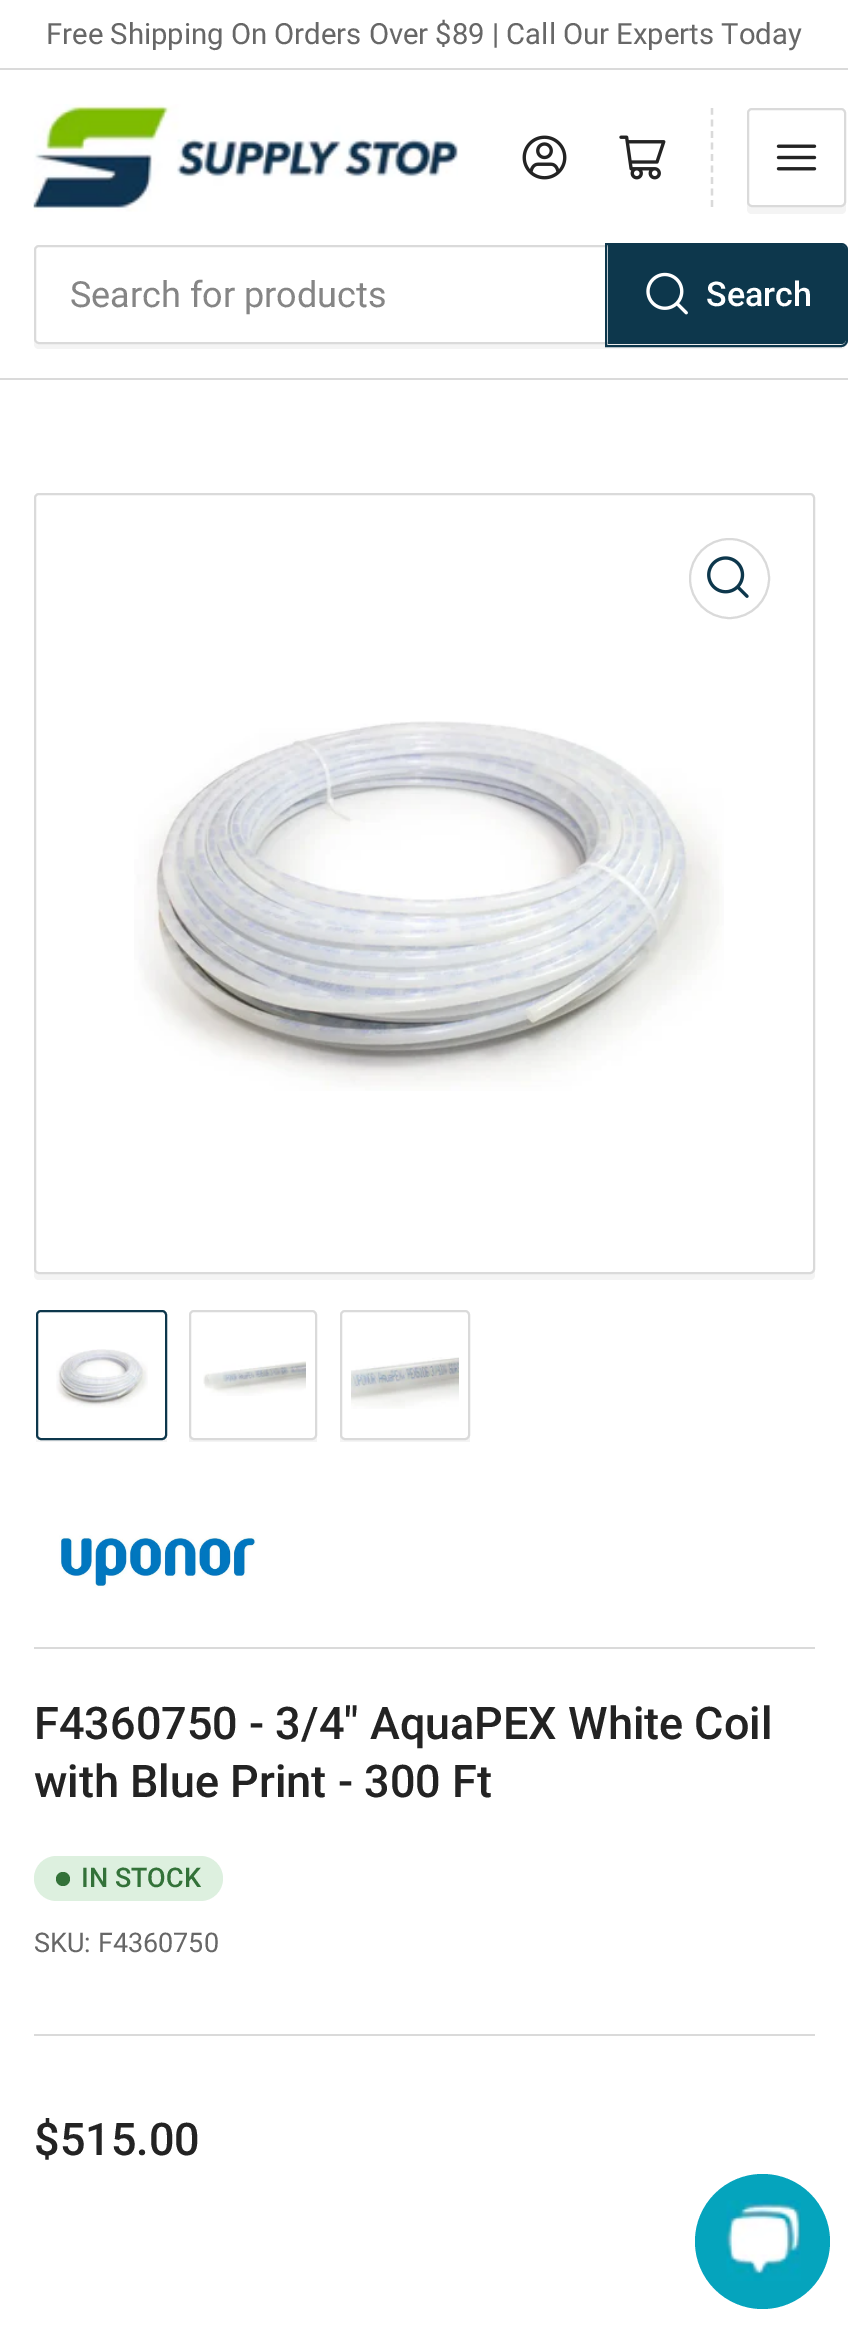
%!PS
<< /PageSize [848 2326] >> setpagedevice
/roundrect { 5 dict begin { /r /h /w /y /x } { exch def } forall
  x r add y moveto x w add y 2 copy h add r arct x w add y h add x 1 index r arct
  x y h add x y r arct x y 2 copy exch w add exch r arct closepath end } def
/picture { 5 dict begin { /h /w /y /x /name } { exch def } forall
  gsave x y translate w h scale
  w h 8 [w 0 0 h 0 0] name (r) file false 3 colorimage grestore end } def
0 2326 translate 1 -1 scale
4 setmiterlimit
1 setgray
0 0 848 2326 rectfill
0.855 setgray
0 68 848 2 rectfill
/Roboto-Regular [29.25 0 0 -29.25 0 0] selectfont
0.404 setgray
46 44 moveto (Free Shipping On Orders Over $89 | Call Our Experts Today) show
0.855 setgray
0 378 848 2 rectfill
(img1.rgb) 33 104 425 108 picture
(img2.rgb) 522 135 45 45 picture
(img3.rgb) 619 135 47 45 picture
2.2 setlinewidth
[6.75 4.77] 0 setdash
newpath 712 108 moveto 712 207 lineto stroke
0.957 setgray
newpath 747 202 moveto 747 209 lineto 747 212 749 214 752 214 curveto 841 214 lineto 844 214 846 212 846 209 curveto 846 202 lineto 846 205 844 207 842 207 curveto 752 207 lineto 749 207 747 205 747 202 curveto closepath fill
0.855 setgray
2 setlinewidth
[] 0 setdash
748 109 97 97 4 roundrect stroke
(img4.rgb) 776 144 41 27 picture
0.957 setgray
newpath 34 341 moveto 34 344 lineto 34 347 36 349 39 349 curveto 841 349 lineto 844 349 846 347 846 344 curveto 846 340 lineto 846 342 844 344 842 344 curveto 38 344 lineto 36 344 35 343 34 341 curveto closepath fill
0.855 setgray
35 246 810 97 4 roundrect stroke
/Roboto-Regular [36 0 0 -36 0 0] selectfont
0.522 setgray
70 307 moveto (Search for products) show
0.051 0.216 0.298 setrgbcolor
newpath 606 244 moveto 841 244 lineto 844.5 244 847 246.5 847 250 curveto 847 340 lineto 847 343.5 844.5 346 841 346 curveto 606 346 lineto closepath stroke
newpath 608 245 moveto 841 245 lineto 844 245 846 247 846 250 curveto 846 339 lineto 846 342 844 344 841 344 curveto 608 344 lineto closepath fill
(img5.rgb) 646 272 42 43 picture
/Roboto-Medium [34 0 0 -34 0 0] selectfont
1 setgray
706 306 moveto (Search) show
0.957 setgray
newpath 34 1270 moveto 34 1275 lineto 34 1278 36 1280 39 1280 curveto 810 1280 lineto 813 1280 815 1278 815 1275 curveto 815 505 lineto 814 503 lineto 814 1269 lineto 814 1271 812 1274 810 1274 curveto 38 1274 lineto 36 1274 35 1272 34 1270 curveto closepath fill
1 setgray
35 494 779 779 4 roundrect gsave fill grestore
0.855 setgray
stroke
newpath 729.5 578.5 39.5 0 360 arc closepath stroke
(img6.rgb) 707 556 42 42 picture
(img7.rgb) 134 721 590 370 picture
gsave
34 1307 781 135 rectclip
0.957 setgray
newpath 36 1436 moveto 36 1442 lineto 36 1445 38 1447 41 1447 curveto 162 1447 lineto 165 1447 167 1445 167 1442 curveto 167 1321 lineto 166 1319 lineto 166 1436 lineto 166 1438 164 1440 162 1440 curveto 40 1440 lineto 38 1440 36 1438 36 1436 curveto closepath fill
grestore
1 setgray
37 1311 129 128 4 roundrect gsave fill grestore
0.051 0.216 0.298 setrgbcolor
stroke
(img8.rgb) 56 1349 92 59 picture
gsave
34 1307 781 135 rectclip
0.957 setgray
newpath 189 1436 moveto 189 1442 lineto 189 1445 191 1447 194 1447 curveto 312 1447 lineto 315 1447 317 1445 317 1442 curveto 317 1437 lineto 316 1439 315 1440 313 1440 curveto 194 1440 lineto 191 1440 189 1438 189 1436 curveto closepath fill
grestore
0.855 setgray
190 1311 126 128 4 roundrect stroke
(img9.rgb) 203 1361 103 35 picture
gsave
34 1307 781 135 rectclip
0.957 setgray
newpath 340 1437 moveto 340 1442 lineto 340 1445 342 1447 345 1447 curveto 465 1447 lineto 468 1447 470 1445 470 1442 curveto 470 1437 lineto 469 1439 468 1440 466 1440 curveto 344 1440 lineto 342 1440 341 1439 340 1437 curveto closepath fill
grestore
341 1311 128 128 4 roundrect stroke
(img10.rgb) 351 1357 108 52 picture
34 2034 781 2 rectfill
(img11.rgb) 59 1535 197 53 picture
34 1647 781 2 rectfill
/Roboto-Medium [45 0 0 -45 0 0] selectfont
0.137 setgray
34 1739 moveto (F4360750 - 3/4" AquaPEX White Coil) show
34 1797 moveto (with Blue Print - 300 Ft) show
0.867 0.941 0.875 setrgbcolor
34 1856 189 45 22.5 roundrect fill
0.2 0.447 0.224 setrgbcolor
newpath 63 1879 7 0 360 arc closepath fill
/Roboto-Medium [27 0 0 -27 0 0] selectfont
81 1887 moveto (IN STOCK) show
/Roboto-Regular [27 0 0 -27 0 0] selectfont
0.404 setgray
34 1952 moveto (SKU: F4360750) show
/Roboto-Medium [45 0 0 -45 0 0] selectfont
0.137 setgray
34 2155 moveto ($515.00) show
0.02 0.643 0.741 setrgbcolor
newpath 762.5 2241.5 67.5 0 360 arc closepath fill
(img12.rgb) 726 2200 75 81 picture
showpage
